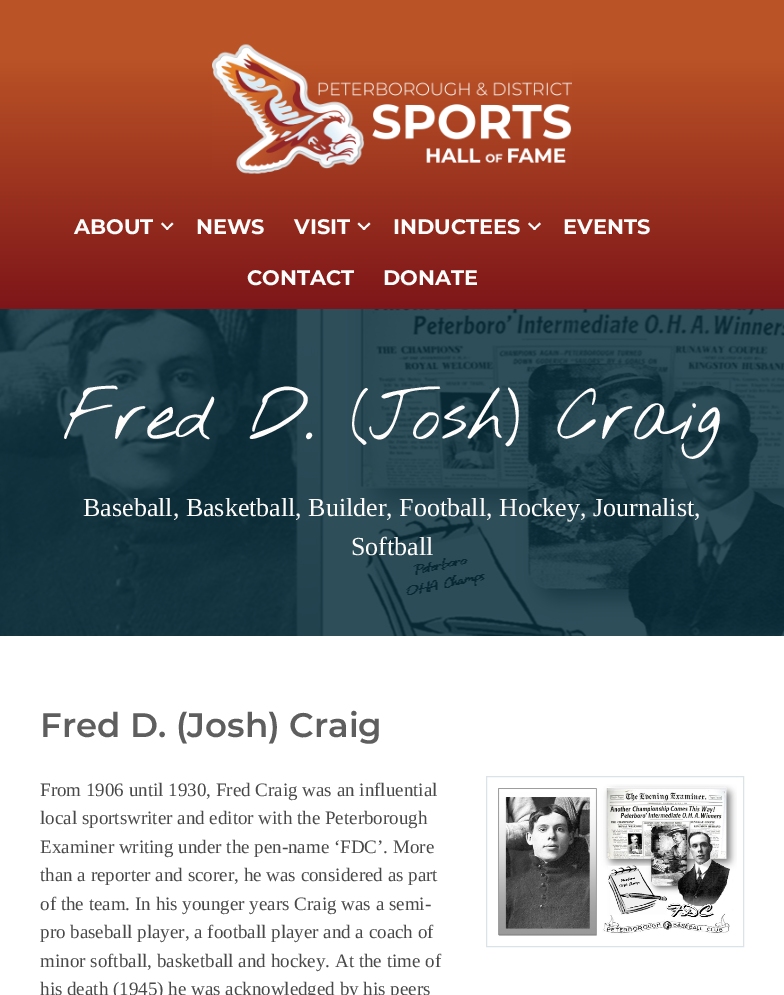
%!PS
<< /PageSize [784 995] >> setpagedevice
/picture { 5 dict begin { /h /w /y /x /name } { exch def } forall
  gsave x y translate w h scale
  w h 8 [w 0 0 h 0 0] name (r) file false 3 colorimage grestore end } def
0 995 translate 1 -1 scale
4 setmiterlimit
1 setgray
0 0 784 995 rectfill
gsave newpath 0 0 moveto 784 0 lineto 784 309 lineto 0 309 lineto closepath clip newpath
<< /ShadingType 2 /ColorSpace /DeviceRGB /Coords [392 309 392 0] /Extend [true true] /Function << /FunctionType 3 /Domain [0 1] /Functions [<< /FunctionType 2 /Domain [0 1] /C0 [0.494 0.082 0.098] /C1 [0.729 0.325 0.149] /N 1 >> << /FunctionType 2 /Domain [0 1] /C0 [0.729 0.325 0.149] /C1 [0.729 0.325 0.149] /N 1 >>] /Bounds [0.81] /Encode [0 1 0 1] >> >> shfill grestore
(img1.rgb) 212 44 360 130 picture
/Montserrat-Bold [21 0 0 -21 0 0] selectfont
1 0.988 0.988 setrgbcolor
74 234 moveto (ABOUT) show
newpath 172 222.5 moveto 173.5 224 lineto 167 230 lineto 166 229 lineto closepath fill
newpath 162.5 222.5 moveto 168.5 229 lineto 167 230 lineto 161 224 lineto closepath fill
196 234 moveto (NEWS) show
294 234 moveto (VISIT) show
newpath 369 222.5 moveto 370.5 224 lineto 364 230 lineto 362.5 229 lineto closepath fill
newpath 359 222.5 moveto 365.5 229 lineto 364 230 lineto 357.5 224 lineto closepath fill
393 234 moveto (INDUCTEES) show
newpath 539.5 222.5 moveto 541 224 lineto 534.5 230 lineto 533 229 lineto closepath fill
newpath 529.5 222.5 moveto 536 229 lineto 534.5 230 lineto 528 224 lineto closepath fill
563 234 moveto (EVENTS) show
247 285 moveto (CONTACT) show
383 285 moveto (DONATE) show
(img2.rgb) 0 309 784 327 picture
/NothingYouCouldDo-Thin [69 0 0 -69 0 0] selectfont
63 439 moveto (Fred D. \(Josh\) Craig) show
/LiberationSerif-Regular [26 0 0 -26 0 0] selectfont
83 516 moveto (Baseball, Basketball, Builder, Football, Hockey, Journalist,) show
351 555 moveto (Softball) show
/Montserrat-SemiBold [34 0 0 -34 0 0] selectfont
0.369 setgray
40 737 moveto (Fred D. \(Josh\) Craig) show
/LiberationSerif-Regular [19 0 0 -19 0 0] selectfont
0.286 setgray
40 796 moveto (From 1906 until 1930, Fred Craig was an influential) show
40 824 moveto (local sportswriter and editor with the Peterborough) show
40 853 moveto (Examiner writing under the pen-name ‘FDC’. More) show
40 881 moveto (than a reporter and scorer, he was considered as part) show
40 910 moveto (of the team. In his younger years Craig was a semi-) show
40 938 moveto (pro baseball player, a football player and a coach of) show
40 967 moveto (minor softball, basketball and hockey. At the time of) show
40 995 moveto (his death \(1945\) he was acknowledged by his peers) show
0.855 0.894 0.91 setrgbcolor
486.5 776.5 257 170 rectstroke
(img3.rgb) 498 784 239 152 picture
showpage
